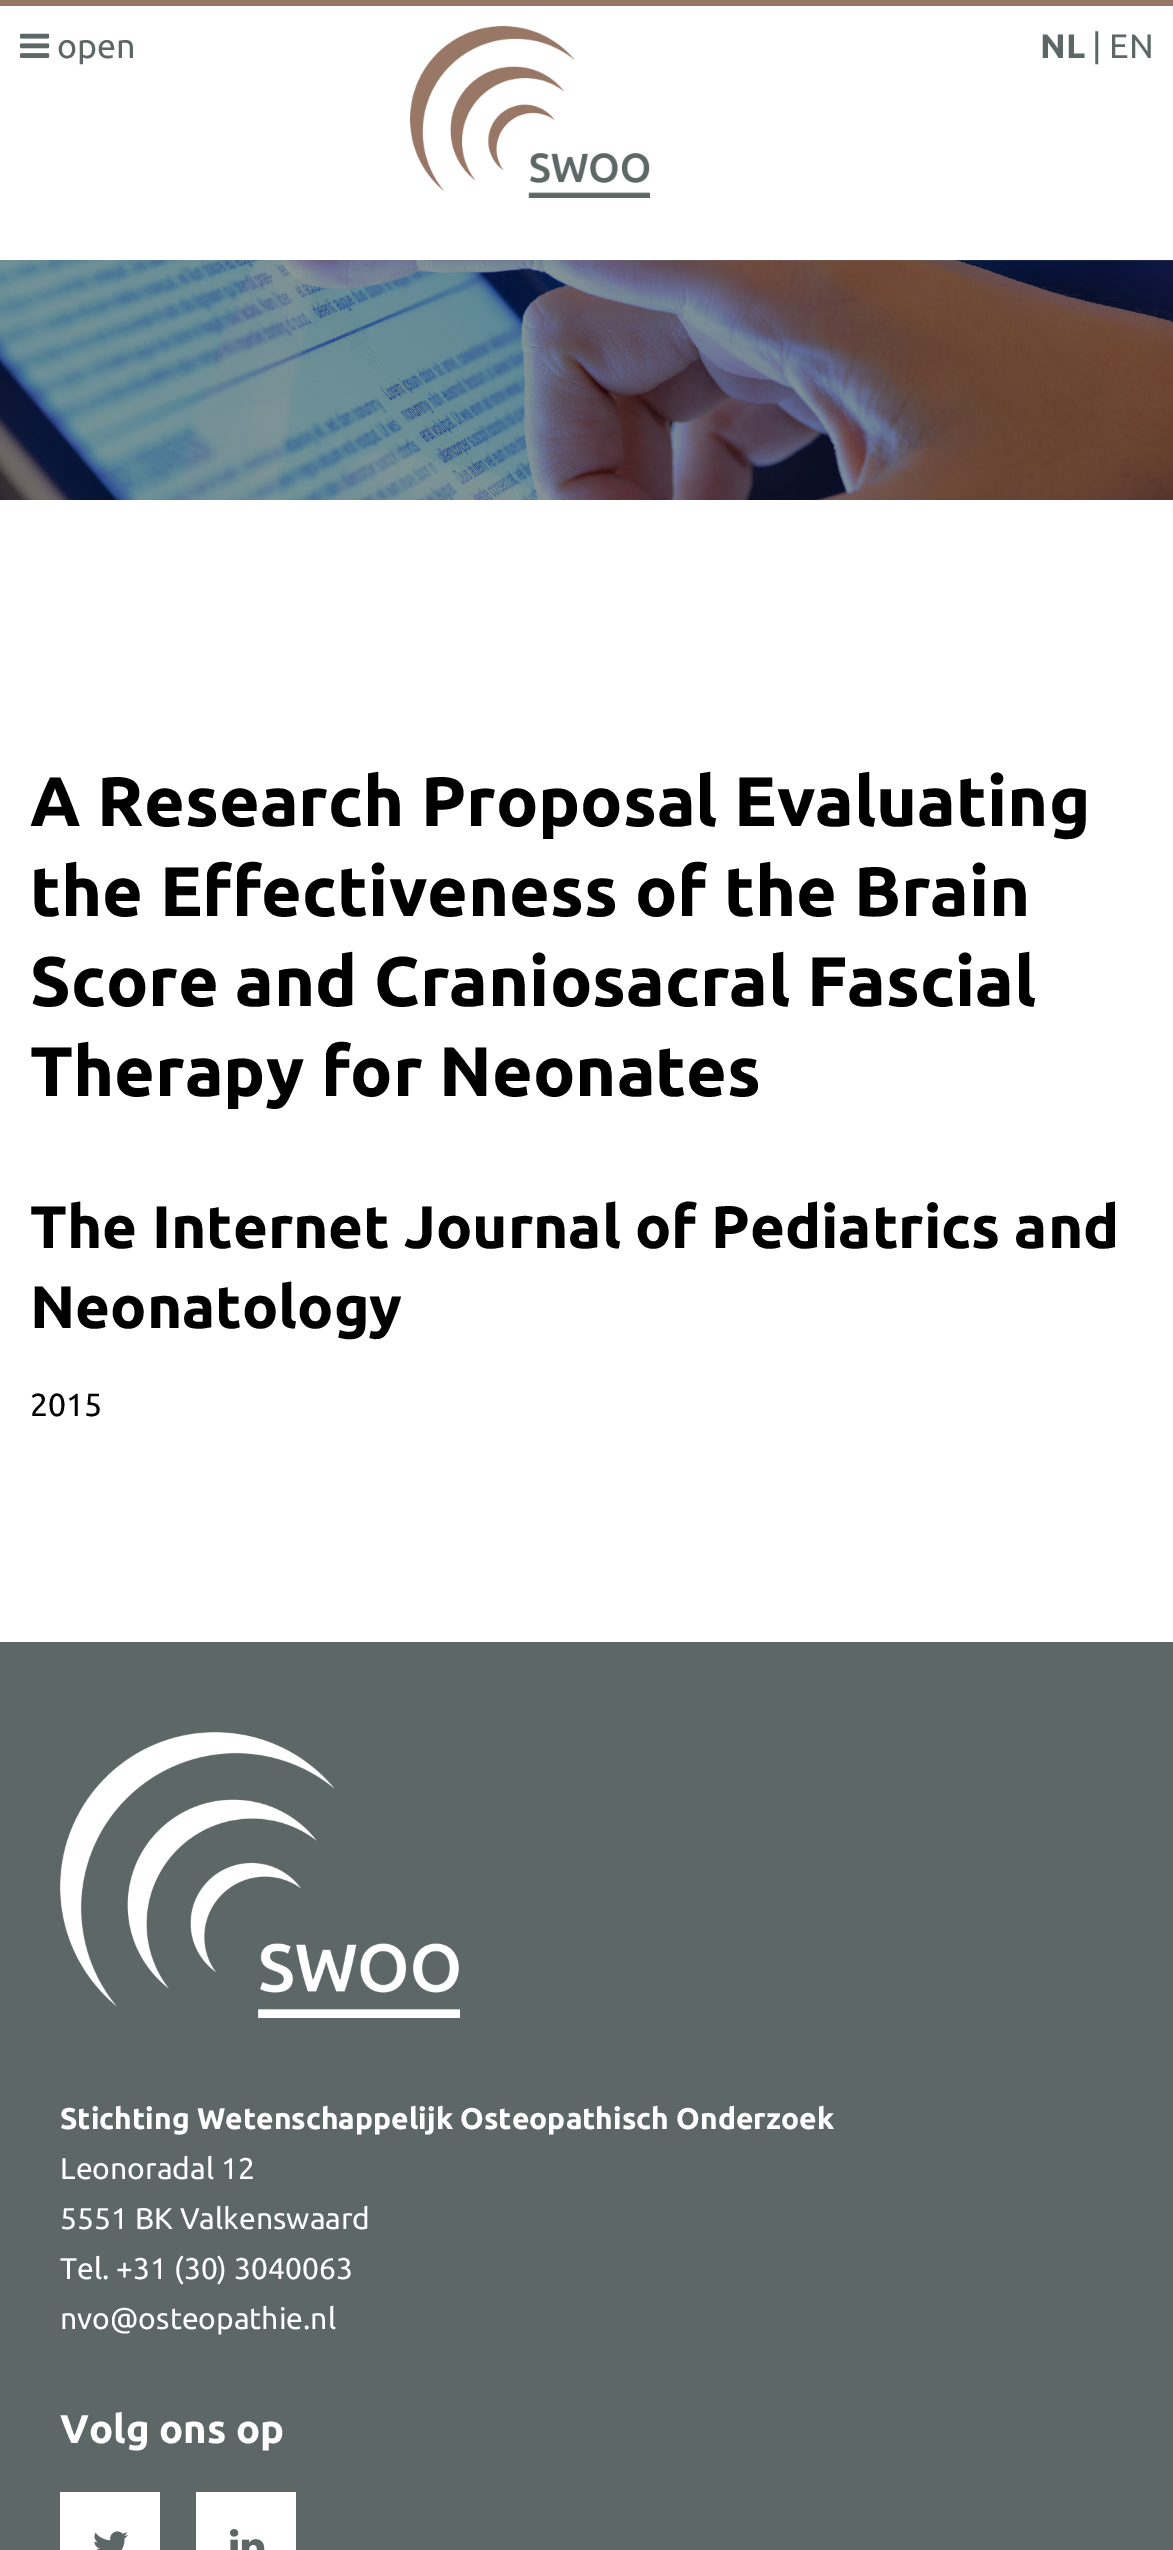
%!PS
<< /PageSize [1173 2550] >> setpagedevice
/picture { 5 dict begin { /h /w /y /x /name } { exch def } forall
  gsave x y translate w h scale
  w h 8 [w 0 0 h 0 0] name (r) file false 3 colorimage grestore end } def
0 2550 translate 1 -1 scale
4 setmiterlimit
1 setgray
0 0 1173 2550 rectfill
0.6 0.467 0.4 setrgbcolor
0 0 1173 6 rectfill
(img1.rgb) 20 33 30 25 picture
/Ubuntu-Regular [34 0 0 -34 0 0] selectfont
0.365 0.408 0.4 setrgbcolor
57 58 moveto (open) show
(img2.rgb) 410 26 240 172 picture
/Ubuntu-Bold [34 0 0 -34 0 0] selectfont
1040 58 moveto (NL) show
/Ubuntu-Regular [34 0 0 -34 0 0] selectfont
1092 58 moveto (| EN) show
(img3.rgb) 0 260 1173 240 picture
/Ubuntu-Bold [70 0 0 -70 0 0] selectfont
0 setgray
30 826 moveto (A Research Proposal Evaluating) show
30 916 moveto (the Effectiveness of the Brain) show
30 1006 moveto (Score and Craniosacral Fascial) show
30 1096 moveto (Therapy for Neonates) show
/Ubuntu-Bold [60 0 0 -60 0 0] selectfont
30 1248 moveto (The Internet Journal of Pediatrics and) show
30 1328 moveto (Neonatology) show
/Ubuntu-Regular [32 0 0 -32 0 0] selectfont
30 1416 moveto (2015) show
0.365 0.408 0.4 setrgbcolor
0 1642 1173 908 rectfill
(img4.rgb) 60 1732 400 286 picture
/Ubuntu-Bold [30 0 0 -30 0 0] selectfont
1 setgray
60 2129 moveto (Stichting Wetenschappelijk Osteopathisch Onderzoek) show
/Ubuntu-Regular [30 0 0 -30 0 0] selectfont
60 2179 moveto (Leonoradal 12) show
60 2229 moveto (5551 BK Valkenswaard) show
60 2279 moveto (Tel. +31 \(30\) 3040063) show
60 2329 moveto (nvo@osteopathie.nl) show
/Ubuntu-Bold [40 0 0 -40 0 0] selectfont
60 2443 moveto (Volg ons op) show
60 2492 100 58 rectfill
(img5.rgb) 94 2531 34 19 picture
196 2492 100 58 rectfill
(img6.rgb) 230 2529 35 21 picture
showpage
